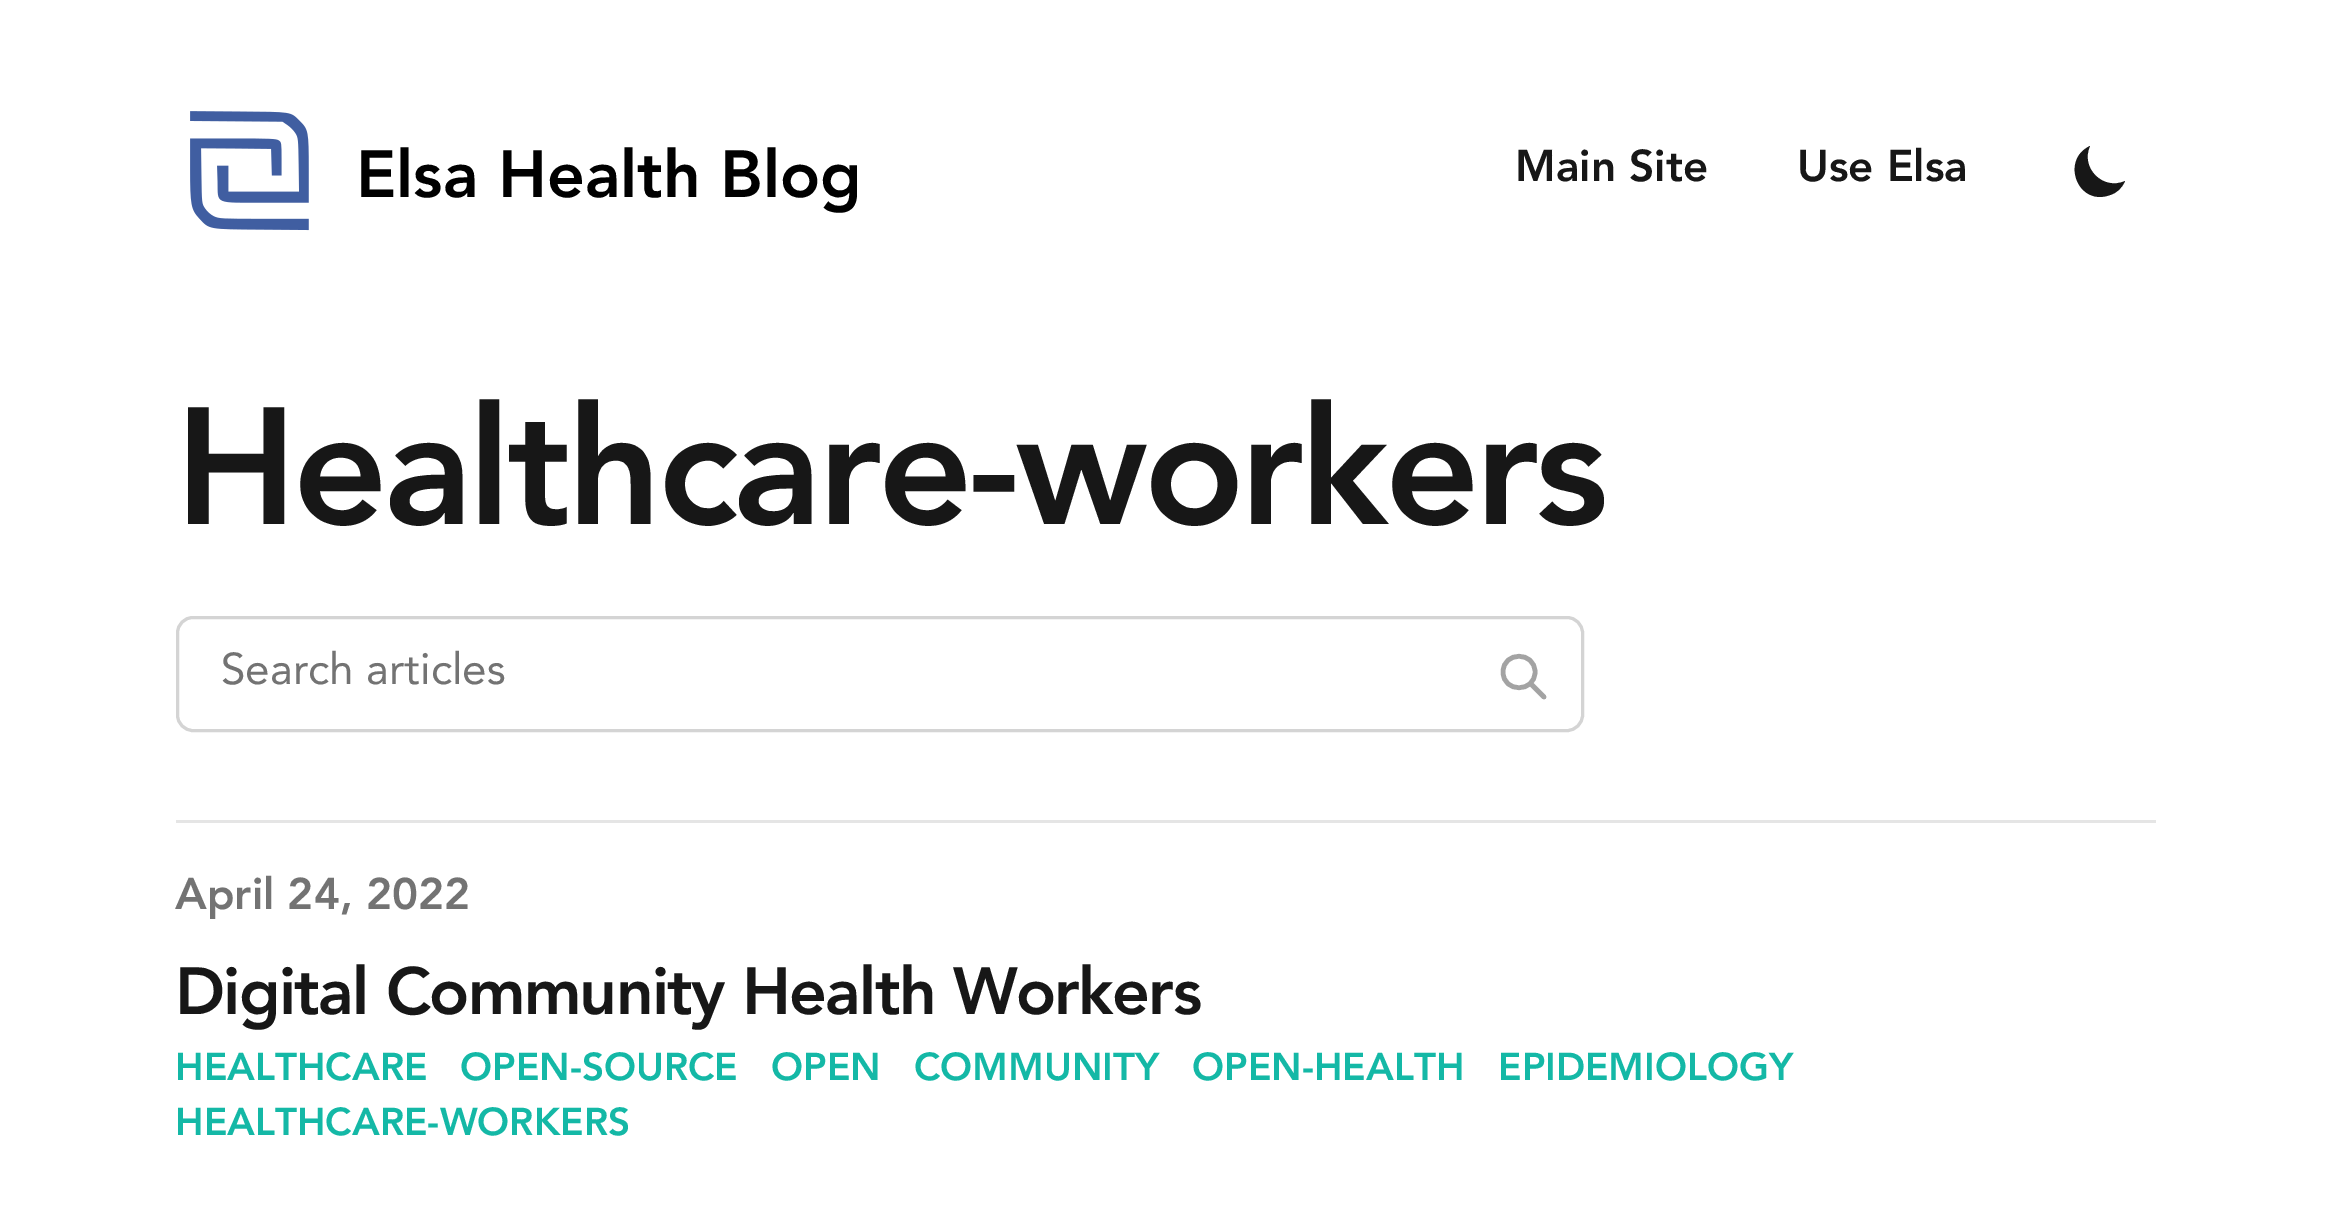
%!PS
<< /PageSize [2329 1218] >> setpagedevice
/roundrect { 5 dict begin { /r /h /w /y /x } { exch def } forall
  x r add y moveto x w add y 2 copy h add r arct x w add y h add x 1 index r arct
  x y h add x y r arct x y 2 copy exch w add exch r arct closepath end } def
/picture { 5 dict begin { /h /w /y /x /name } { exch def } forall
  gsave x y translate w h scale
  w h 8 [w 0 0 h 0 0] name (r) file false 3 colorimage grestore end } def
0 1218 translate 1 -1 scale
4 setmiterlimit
1 setgray
0 0 2329 1218 rectfill
(img1.rgb) 190 111 119 120 picture
/Avenir-Black [66 0 0 -66 0 0] selectfont
0 setgray
356 197 moveto (Elsa Health Blog) show
/Avenir-Black [44 0 0 -44 0 0] selectfont
0.09 setgray
1515 181 moveto (Main Site) show
1797 181 moveto (Use Elsa) show
newpath 2125 181 moveto 2103 191 2080 168 2090 146 curveto 2060 160 2078 207 2110 195 curveto 2117 193 2122 188 2125 181 curveto closepath fill
/Avenir-Black [165 0 0 -165 0 0] selectfont
175 524 moveto -4.1 0 (Healthcare-workers) ashow
0.831 setgray
3 setlinewidth
177.5 617.5 1405 113 15.5 roundrect stroke
/Avenir-Regular [44 0 0 -44 0 0] selectfont
0.451 setgray
221 684 moveto (Search articles) show
0.639 setgray
4.6 setlinewidth
1 setlinecap
1 setlinejoin
newpath 1544 697 moveto 1530.5 683.5 lineto 1535 672 moveto 1535 693 1503 693 1503 672 curveto 1503 651 1535 651 1535 672 curveto closepath stroke
0.898 setgray
176 820 1980 3 rectfill
/Avenir-Black [44 0 0 -44 0 0] selectfont
0.451 setgray
175 909 moveto (April 24, 2022) show
/Avenir-Black [66 0 0 -66 0 0] selectfont
0.09 setgray
175 1014 moveto -1.65 0 (Digital Community Health Workers) ashow
/Avenir-Black [38.5 0 0 -38.5 0 0] selectfont
0.078 0.722 0.651 setrgbcolor
175 1080 moveto (HEALTHCARE) show
460 1080 moveto (OPEN-SOURCE) show
771 1080 moveto (OPEN) show
914 1080 moveto (COMMUNITY) show
1192 1080 moveto (OPEN-HEALTH) show
1498 1080 moveto (EPIDEMIOLOGY) show
175 1135 moveto (HEALTHCARE-WORKERS) show
showpage
